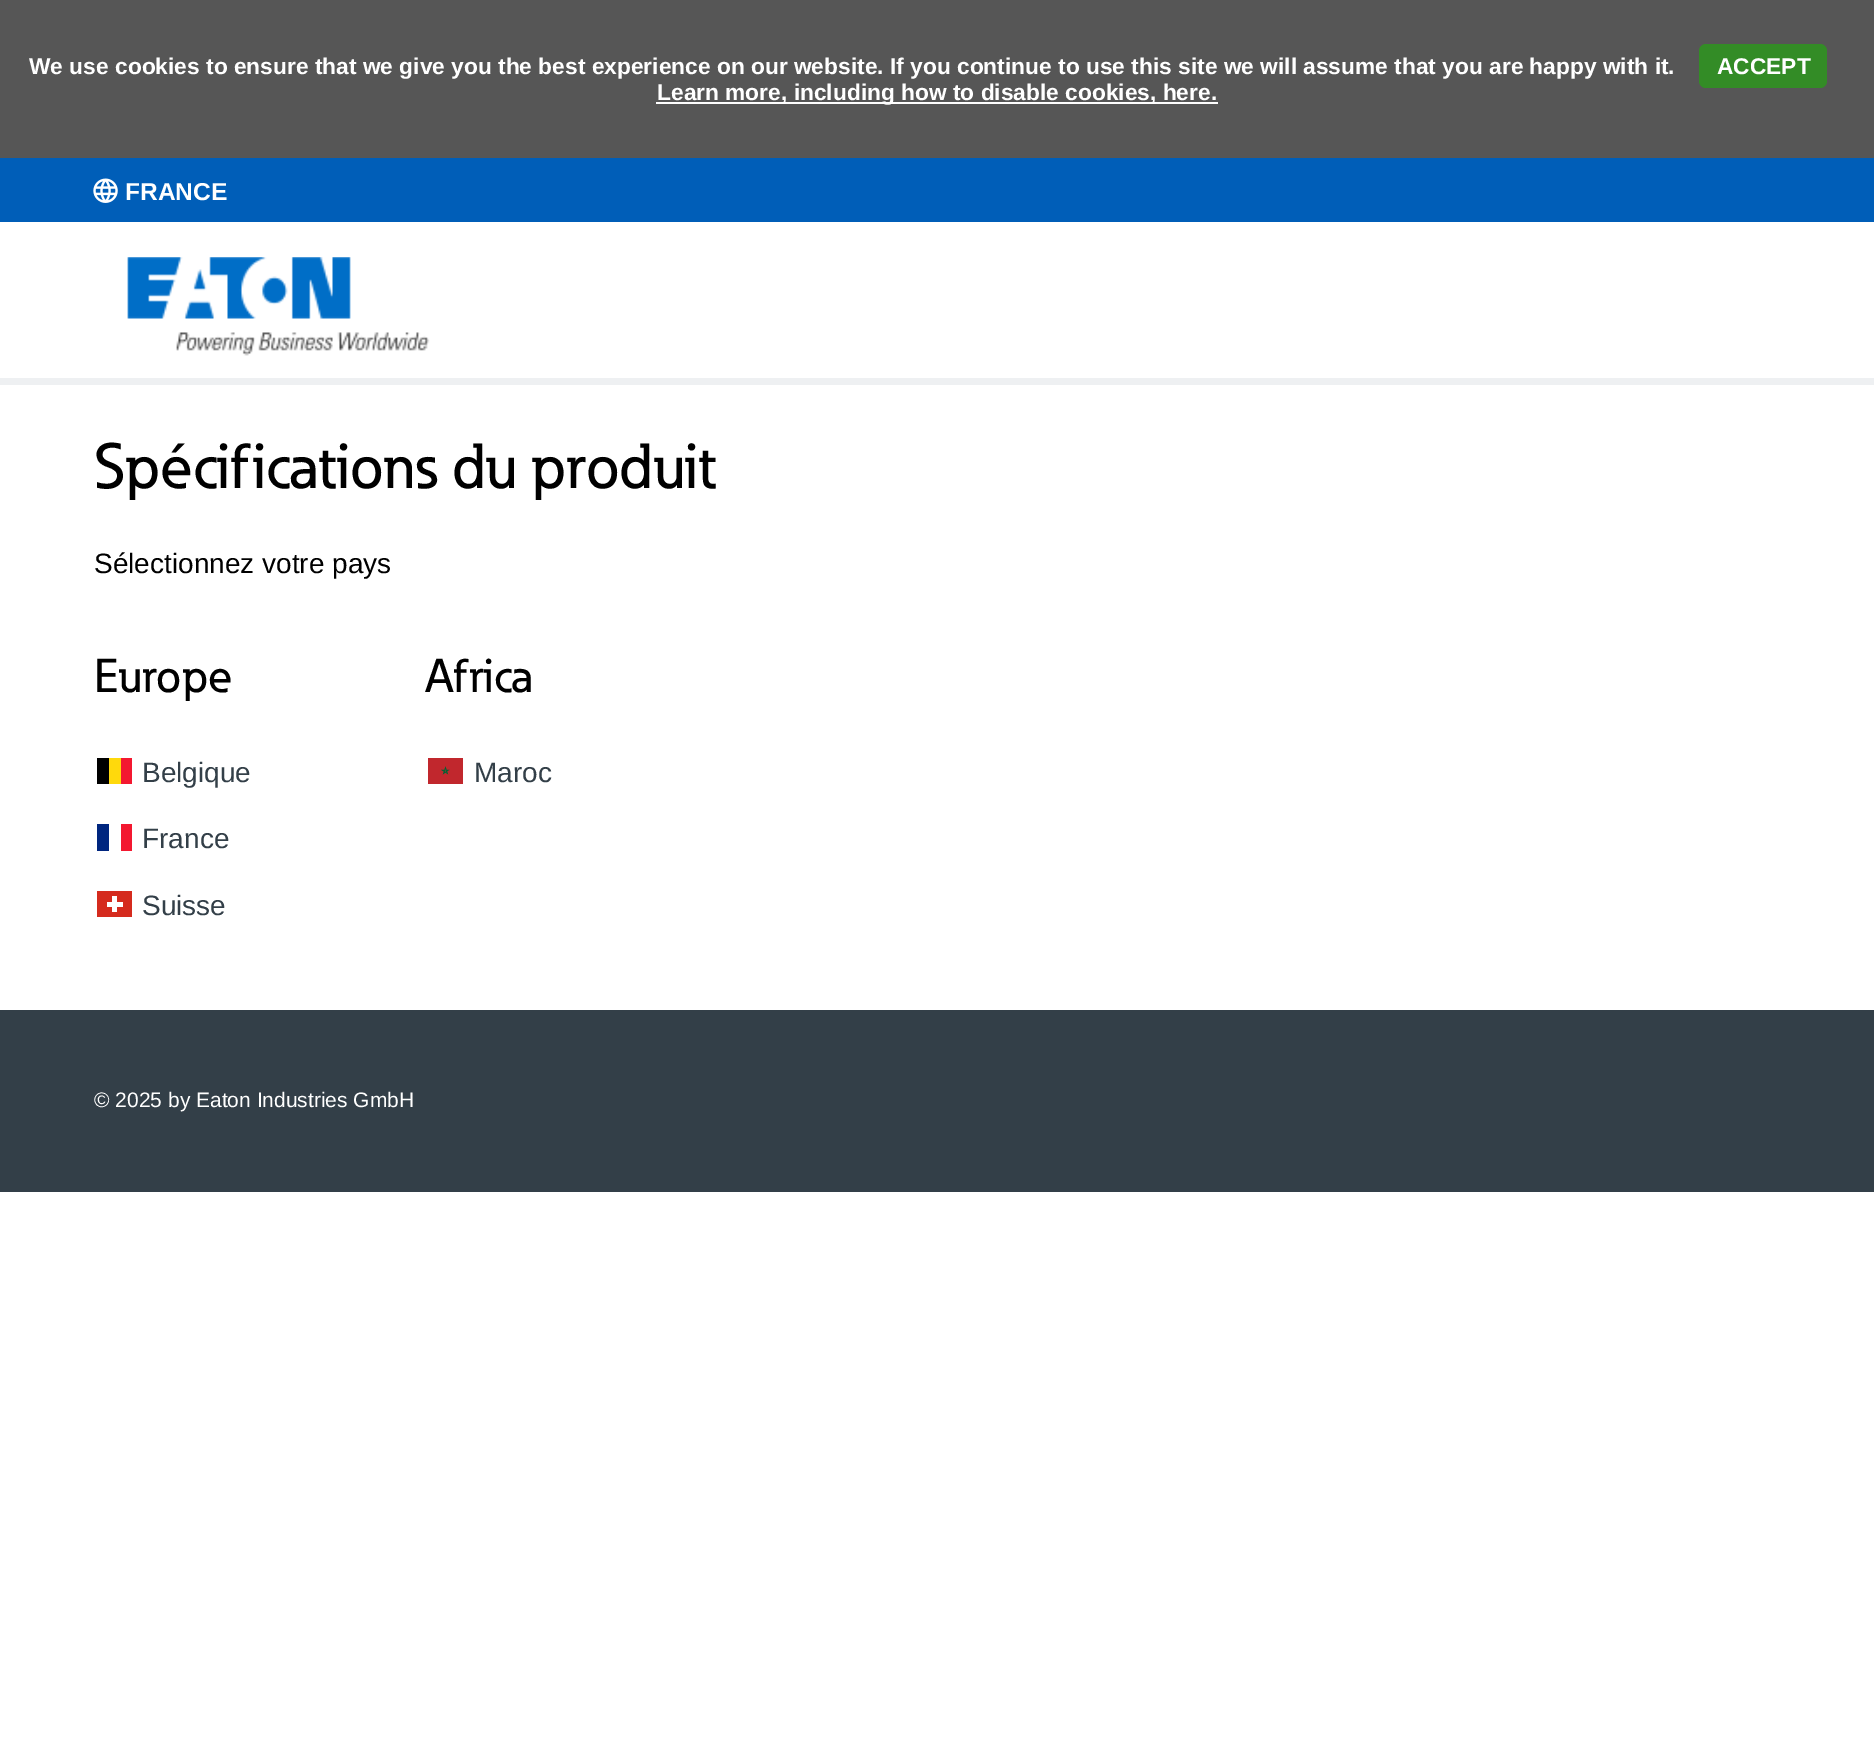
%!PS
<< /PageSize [1874 1737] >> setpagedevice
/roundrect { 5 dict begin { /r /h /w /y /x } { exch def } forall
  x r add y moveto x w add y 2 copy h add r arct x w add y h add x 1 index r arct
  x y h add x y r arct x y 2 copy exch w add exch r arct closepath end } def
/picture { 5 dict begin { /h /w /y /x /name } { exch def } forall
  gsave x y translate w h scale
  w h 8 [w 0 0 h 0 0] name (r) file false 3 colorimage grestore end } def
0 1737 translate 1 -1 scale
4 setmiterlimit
1 setgray
0 0 1874 1737 rectfill
0.337 setgray
0 0 1874 158 rectfill
/LiberationSans-Bold [22.75 0 0 -22.75 0 0] selectfont
1 setgray
29 74 moveto (We use cookies to ensure that we give you the best experience on our website. If you continue to use this site we will assume that you are happy with it.) show
0.2 0.549 0.149 setrgbcolor
1699 44 128 44 7 roundrect fill
1 setgray
1717 74 moveto (ACCEPT) show
656 102 562 2 rectfill
657 100 moveto (Learn more, including how to disable cookies, here.) show
0 0.369 0.722 setrgbcolor
0 158 1874 64 rectfill
(img1.rgb) 93 178 25 25 picture
/LiberationSans-Bold [24.5 0 0 -24.5 0 0] selectfont
1 setgray
125 200 moveto (FRANCE) show
(img2.rgb) 127 257 303 99 picture
0.933 0.941 0.949 setrgbcolor
0 378 1874 7 rectfill
/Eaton-Medium [63 0 0 -63 0 0] selectfont
0 setgray
94 488 moveto (Spécifications du produit) show
/LiberationSans-Regular [28 0 0 -28 0 0] selectfont
94 573 moveto (Sélectionnez votre pays) show
/Eaton-Medium [47 0 0 -47 0 0] selectfont
94 692 moveto (Europe) show
/LiberationSans-Regular [28 0 0 -28 0 0] selectfont
0.2 0.247 0.282 setrgbcolor
142 782 moveto (Belgique) show
0 setgray
97 758 12 26 rectfill
1 0.851 0.047 setrgbcolor
109 758 12 26 rectfill
0.953 0.094 0.188 setrgbcolor
121 758 11 26 rectfill
0.2 0.247 0.282 setrgbcolor
142 848 moveto (France) show
0 0.149 0.498 setrgbcolor
97 824 12 27 rectfill
0.953 0.094 0.188 setrgbcolor
121 824 11 27 rectfill
0.2 0.247 0.282 setrgbcolor
142 915 moveto (Suisse) show
0.835 0.169 0.118 setrgbcolor
97 891 35 26 rectfill
1 setgray
107 902 16 5 rectfill
112 896 5 16 rectfill
/Eaton-Medium [47 0 0 -47 0 0] selectfont
0 setgray
426 692 moveto (Africa) show
/LiberationSans-Regular [28 0 0 -28 0 0] selectfont
0.2 0.247 0.282 setrgbcolor
474 782 moveto (Maroc) show
0.757 0.153 0.176 setrgbcolor
428 758 35 26 rectfill
0 0.384 0.2 setrgbcolor
0.6 setlinewidth
newpath 445.5 767.5 moveto 443.5 773.5 lineto 448.5 770 lineto 442 770 lineto 447.5 773.5 lineto closepath stroke
0.2 0.247 0.282 setrgbcolor
0 1010 1874 182 rectfill
/LiberationSans-Regular [21 0 0 -21 0 0] selectfont
1 setgray
94 1107 moveto (© 2025 by Eaton Industries GmbH) show
showpage
